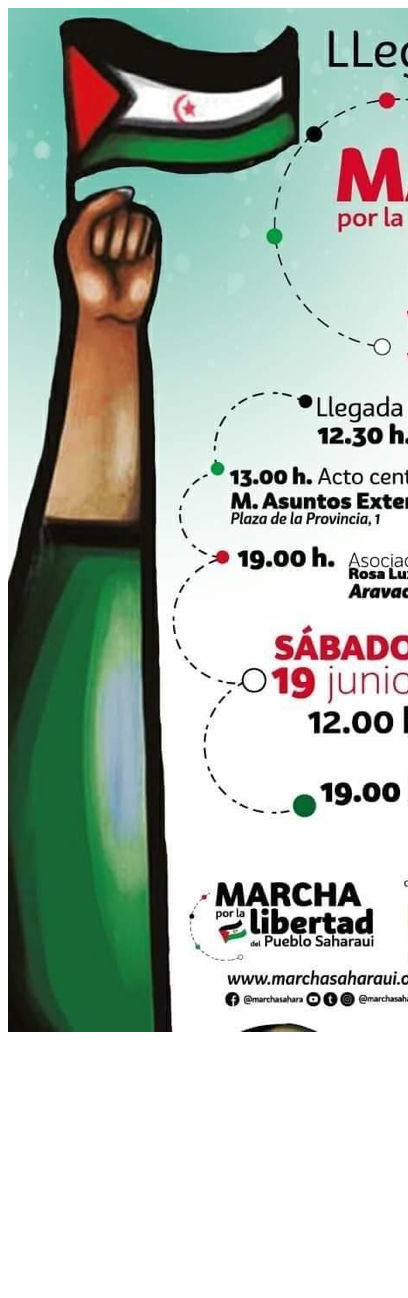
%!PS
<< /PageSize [408 1298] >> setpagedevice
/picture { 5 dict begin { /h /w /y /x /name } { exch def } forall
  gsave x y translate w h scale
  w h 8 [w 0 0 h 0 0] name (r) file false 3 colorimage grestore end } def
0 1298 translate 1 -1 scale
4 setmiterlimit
1 setgray
0 0 408 1298 rectfill
(img1.rgb) 8 8 400 1024 picture
showpage
